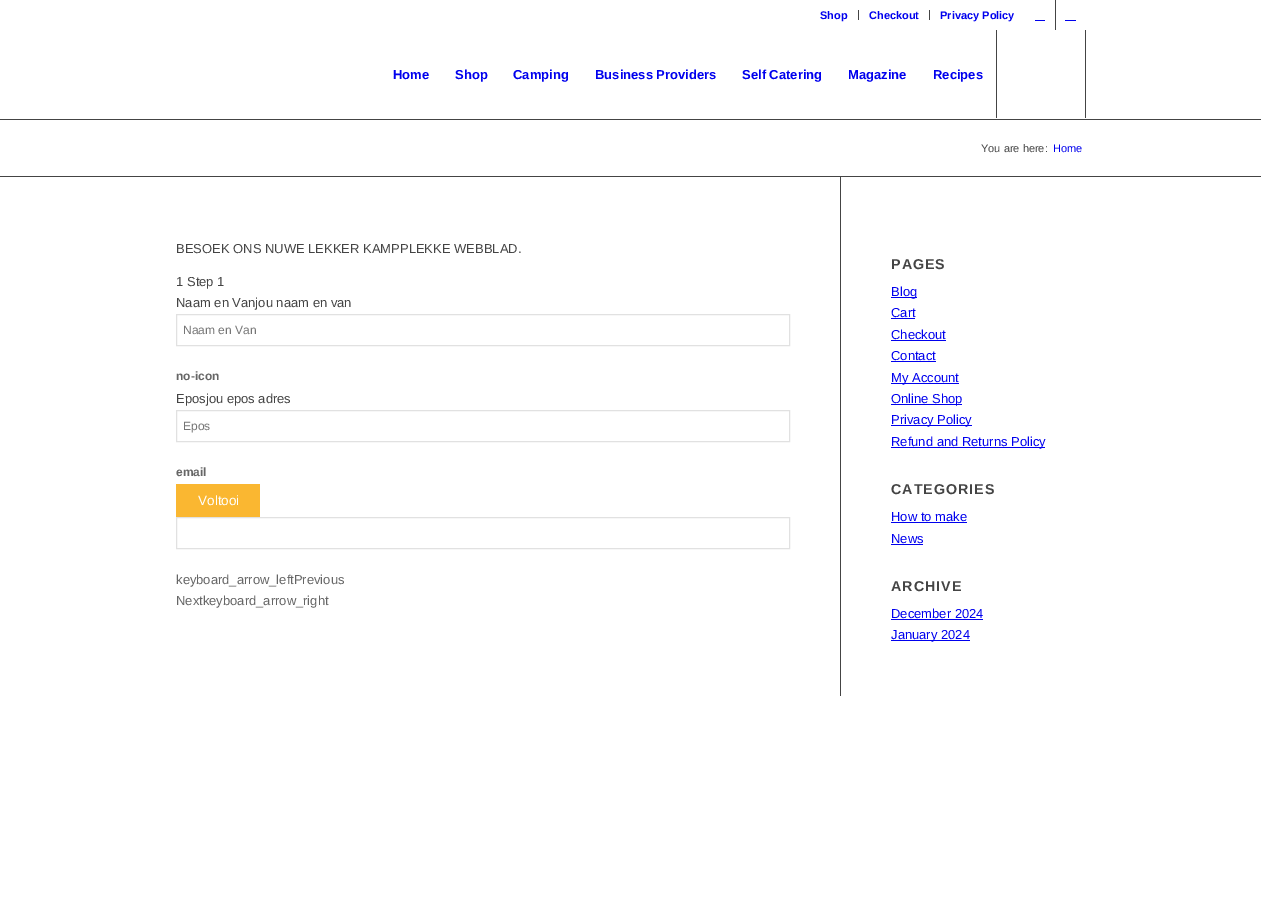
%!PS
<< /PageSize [1261 899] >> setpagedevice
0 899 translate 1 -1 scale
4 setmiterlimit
1 setgray
0 0 1261 899 rectfill
0.267 setgray
858 10 1 10 rectfill
/LiberationSans-Bold [11 0 0 -11 0 0] selectfont
0 0 0.933 setrgbcolor
820 19 moveto (Shop) show
0.267 setgray
929 10 1 10 rectfill
0 0 0.933 setrgbcolor
869 19 moveto (Checkout) show
940 19 moveto (Privacy Policy) show
0.267 setgray
1055 0 1 30 rectfill
0 0 0.933 setrgbcolor
1035 20 10 1 rectfill
1065 20 11 1 rectfill
/LiberationSans-Bold [13 0 0 -13 0 0] selectfont
393 79 moveto (Home) show
455 79 moveto (Shop) show
513 79 moveto (Camping) show
595 79 moveto (Business Providers) show
742 79 moveto (Self Catering) show
848 79 moveto (Magazine) show
933 79 moveto (Recipes) show
0.267 setgray
1085 30 1 88 rectfill
996 30 1 88 rectfill
0 119 1261 1 rectfill
/LiberationSans-Regular [11 0 0 -11 0 0] selectfont
981 152 moveto (You are here:) show
0 0 0.933 setrgbcolor
1053 152 moveto (Home) show
0.267 setgray
0 176 1261 1 rectfill
/LiberationSans-Regular [13 0 0 -13 0 0] selectfont
176 253 moveto (BESOEK ONS NUWE LEKKER KAMPPLEKKE WEBBLAD.) show
176 286 moveto (1 Step 1) show
176 307 moveto (Naam en Vanjou naam en van) show
0.882 setgray
176.5 314.5 613 31 rectstroke
/LiberationSans-Regular [12 0 0 -12 0 0] selectfont
0.459 setgray
183 334 moveto (Naam en Van) show
/LiberationSans-Bold [12 0 0 -12 0 0] selectfont
0.4 setgray
176 380 moveto (no-icon) show
/LiberationSans-Regular [13 0 0 -13 0 0] selectfont
0.267 setgray
176 403 moveto (Eposjou epos adres) show
0.882 setgray
176.5 410.5 613 31 rectstroke
/LiberationSans-Regular [12 0 0 -12 0 0] selectfont
0.459 setgray
183 430 moveto (Epos) show
/LiberationSans-Bold [12 0 0 -12 0 0] selectfont
0.4 setgray
176 476 moveto (email) show
0.98 0.718 0.192 setrgbcolor
176 484 84 33 rectfill
/LiberationSans-Regular [13.5 0 0 -13.5 0 0] selectfont
1 setgray
198 505 moveto (Voltooi) show
0.882 setgray
176.5 517.5 613 31 rectstroke
/LiberationSans-Regular [13 0 0 -13 0 0] selectfont
0.4 setgray
176 584 moveto (keyboard_arrow_leftPrevious) show
176 605 moveto (Nextkeyboard_arrow_right) show
0.267 setgray
840 177 1 519 rectfill
/LiberationSans-Bold [14.25 0 0 -14.25 0 0] selectfont
891 269 moveto 1 0 (PAGES) ashow
0 0 0.933 setrgbcolor
891 297 26 1 rectfill
/LiberationSans-Regular [13 0 0 -13 0 0] selectfont
891 296 moveto (Blog) show
891 317 moveto (Cart) show
891 318 24 1 rectfill
891 339 moveto (Checkout) show
891 340 55 1 rectfill
891 360 moveto (Contact) show
891 361 45 1 rectfill
891 383 68 1 rectfill
891 382 moveto (My Account) show
891 404 71 1 rectfill
891 403 moveto (Online Shop) show
891 425 81 1 rectfill
891 424 moveto (Privacy Policy) show
891 447 154 1 rectfill
891 446 moveto (Refund and Returns Policy) show
/LiberationSans-Bold [14.25 0 0 -14.25 0 0] selectfont
0.267 setgray
891 494 moveto 1 0 (CATEGORIES) ashow
/LiberationSans-Regular [13 0 0 -13 0 0] selectfont
0 0 0.933 setrgbcolor
891 521 moveto (How to make) show
891 522 76 1 rectfill
891 543 moveto (News) show
891 544 32 1 rectfill
/LiberationSans-Bold [14.25 0 0 -14.25 0 0] selectfont
0.267 setgray
891 591 moveto 1 0 (ARCHIVE) ashow
/LiberationSans-Regular [13 0 0 -13 0 0] selectfont
0 0 0.933 setrgbcolor
891 618 moveto (December 2024) show
891 619 92 1 rectfill
891 640 79 1 rectfill
891 639 moveto (January 2024) show
showpage
